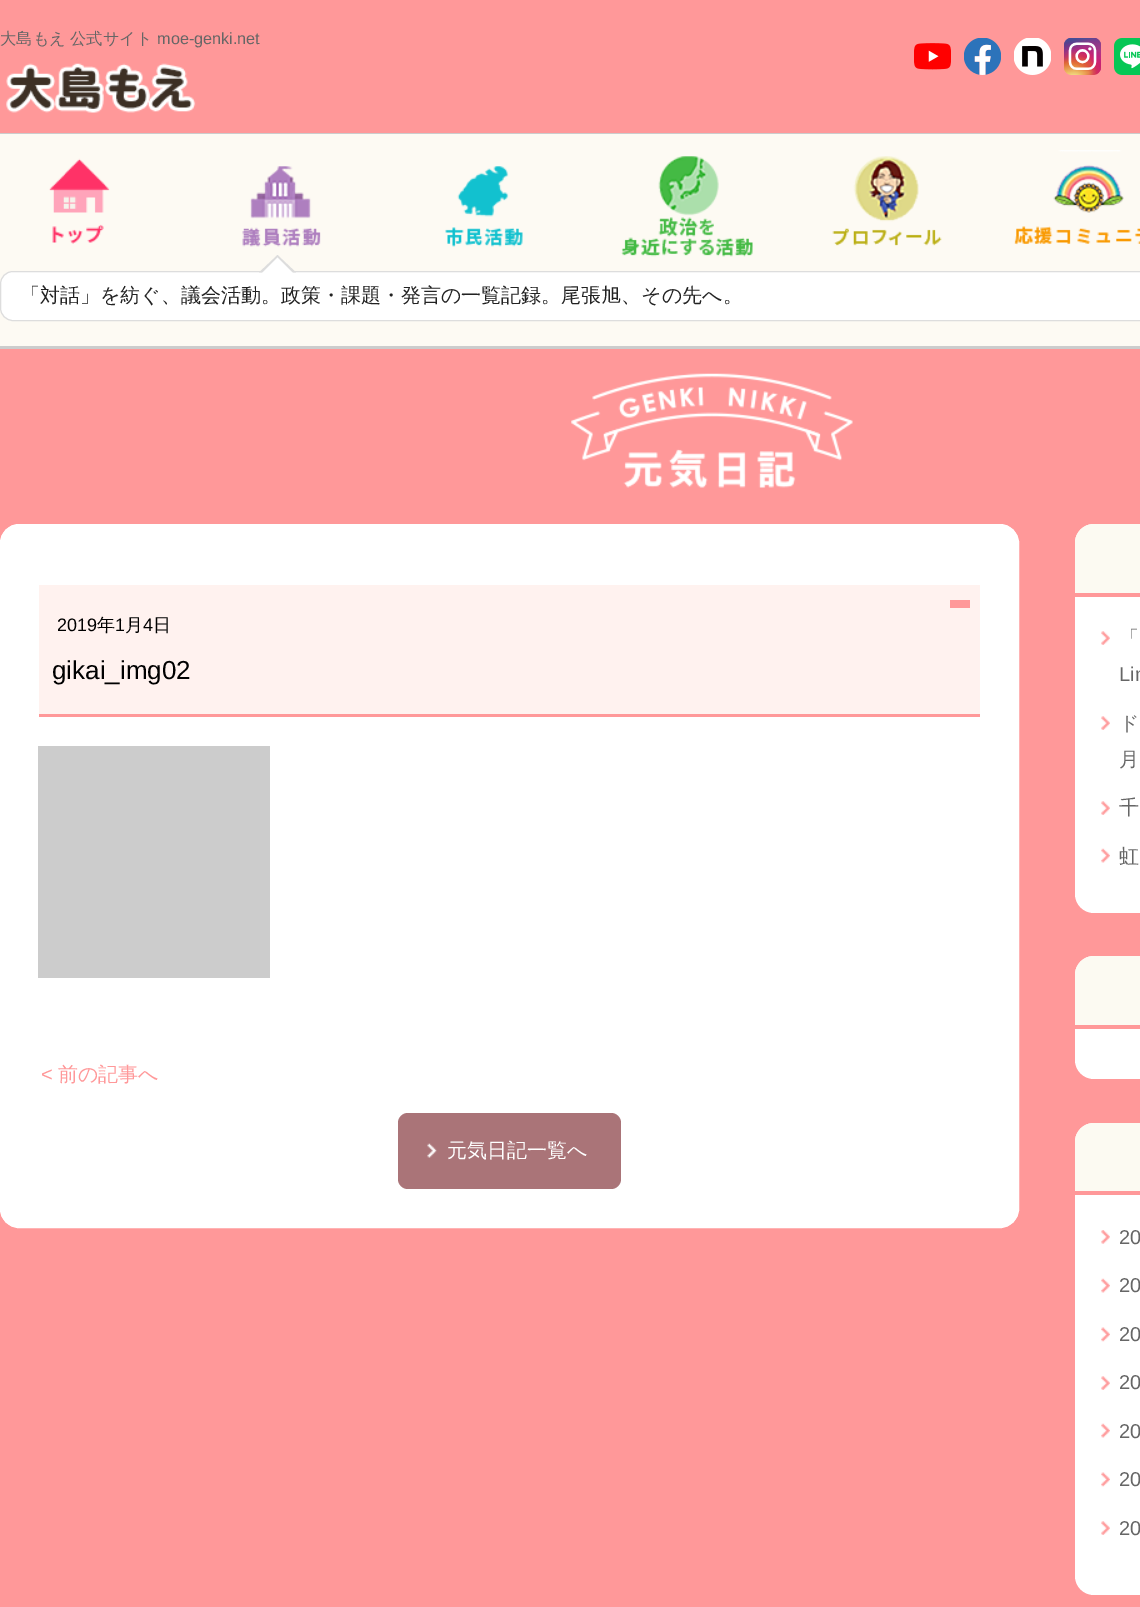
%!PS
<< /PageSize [1140 1607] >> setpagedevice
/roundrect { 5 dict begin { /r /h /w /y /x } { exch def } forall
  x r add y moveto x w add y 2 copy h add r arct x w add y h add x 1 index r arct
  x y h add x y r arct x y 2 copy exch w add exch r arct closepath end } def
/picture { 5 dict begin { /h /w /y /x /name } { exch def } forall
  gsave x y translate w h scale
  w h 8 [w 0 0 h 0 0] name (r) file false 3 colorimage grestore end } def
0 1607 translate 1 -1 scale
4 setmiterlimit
1 0.596 0.6 setrgbcolor
0 0 1140 1607 rectfill
/WenQuanYiZenHei-Medium [16.25 0 0 -16.25 0 0] selectfont
0.4 setgray
0 44 moveto (大島もえ) show
70 44 moveto (公式サイト) show
/LiberationSans-Regular [16.25 0 0 -16.25 0 0] selectfont
157 44 moveto (moe-genki.net) show
(img1.rgb) 6 63 190 50 picture
(img2.rgb) 914 43 37 27 picture
(img3.rgb) 964 38 37 37 picture
(img4.rgb) 1014 38 37 37 picture
(img5.rgb) 1064 38 37 37 picture
(img6.rgb) 1114 38 26 37 picture
0.992 0.98 0.953 setrgbcolor
0 134 1140 212 rectfill
0.8 setgray
0 133 1140 1 rectfill
0 346 1140 3 rectfill
(img7.rgb) 49 158 61 86 picture
(img8.rgb) 445 166 78 81 picture
(img9.rgb) 621 156 132 101 picture
(img10.rgb) 832 156 110 90 picture
(img11.rgb) 1014 150 126 95 picture
(img12.rgb) 242 166 79 81 picture
1 setgray
0.5 271.5 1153 49 12.5 roundrect gsave fill grestore
0.867 setgray
stroke
newpath 296 272.5 moveto 259 272.5 lineto 277.5 255 lineto closepath fill
1 setgray
newpath 294 274 moveto 261 274 lineto 277.5 257.5 lineto closepath fill
/WenQuanYiZenHei-Medium [20 0 0 -20 0 0] selectfont
0.133 setgray
20 302 moveto (「対話」を紡ぐ、議会活動。政策・課題・発言の一覧記録。尾張旭、その先へ。) show
(img13.rgb) 571 373 282 115 picture
1 setgray
0.5 524.5 1018 703 18.5 roundrect gsave fill grestore
stroke
1 0.949 0.937 setrgbcolor
39 585 941 129 rectfill
1 0.596 0.6 setrgbcolor
950 600 20 8 rectfill
/LiberationSans-Regular [18 0 0 -18 0 0] selectfont
0 setgray
57 631 moveto (2019) show
/WenQuanYiZenHei-Medium [18 0 0 -18 0 0] selectfont
97 631 moveto (年) show
/LiberationSans-Regular [18 0 0 -18 0 0] selectfont
115 631 moveto (1) show
/WenQuanYiZenHei-Medium [18 0 0 -18 0 0] selectfont
125 631 moveto (月) show
/LiberationSans-Regular [18 0 0 -18 0 0] selectfont
143 631 moveto (4) show
/WenQuanYiZenHei-Medium [18 0 0 -18 0 0] selectfont
153 631 moveto (日) show
1 0.596 0.6 setrgbcolor
39 714 941 3 rectfill
/LiberationSans-Regular [26 0 0 -26 0 0] selectfont
0 setgray
52 679 moveto (gikai_img02) show
0.8 setgray
38 746 232 232 rectfill
/LiberationSans-Regular [20 0 0 -20 0 0] selectfont
1 0.596 0.6 setrgbcolor
41 1081 moveto (<) show
/WenQuanYiZenHei-Medium [20 0 0 -20 0 0] selectfont
58 1081 moveto (前の記事へ) show
0.667 0.455 0.471 setrgbcolor
398 1113 223 76 10 roundrect fill
(img14.rgb) 427 1143 10 15 picture
1 setgray
447 1157 moveto (元気日記一覧へ) show
1075 524 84 389 19 roundrect fill
0.988 0.98 0.949 setrgbcolor
newpath 1094 524 moveto 1140 524 lineto 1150.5 524 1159 532.5 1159 543 curveto 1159 596 lineto 1075 596 lineto 1075 543 lineto 1075 532.5 1083.5 524 1094 524 curveto closepath fill
1 0.596 0.6 setrgbcolor
1075 593 65 4 rectfill
(img15.rgb) 1101 631 9 14 picture
0.4 setgray
1119 645 moveto (「) show
/LiberationSans-Regular [20 0 0 -20 0 0] selectfont
1119 681 moveto (Lin) show
(img15.rgb) 1101 716 9 14 picture
/WenQuanYiZenHei-Medium [20 0 0 -20 0 0] selectfont
1119 730 moveto (ド) show
1119 766 moveto (月) show
(img15.rgb) 1101 801 9 14 picture
1119 814 moveto (千) show
(img16.rgb) 1101 848 9 15 picture
1119 863 moveto (虹) show
1 setgray
1075 956 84 123 19 roundrect fill
0.988 0.98 0.949 setrgbcolor
newpath 1094 956 moveto 1140 956 lineto 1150.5 956 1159 964.5 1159 975 curveto 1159 1029 lineto 1075 1029 lineto 1075 975 lineto 1075 964.5 1083.5 956 1094 956 curveto closepath fill
1 0.596 0.6 setrgbcolor
1075 1025 65 4 rectfill
1 setgray
1075 1123 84 472 19 roundrect fill
0.988 0.98 0.949 setrgbcolor
newpath 1094 1123 moveto 1140 1123 lineto 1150.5 1123 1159 1131.5 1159 1142 curveto 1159 1195 lineto 1075 1195 lineto 1075 1142 lineto 1075 1131.5 1083.5 1123 1094 1123 curveto closepath fill
1 0.596 0.6 setrgbcolor
1075 1191 65 4 rectfill
(img17.rgb) 1101 1230 9 14 picture
/LiberationSans-Regular [20 0 0 -20 0 0] selectfont
0.4 setgray
1119 1244 moveto (20) show
(img16.rgb) 1101 1278 9 15 picture
1119 1292 moveto (20) show
(img18.rgb) 1101 1327 9 15 picture
1119 1341 moveto (20) show
(img15.rgb) 1101 1376 9 14 picture
1119 1389 moveto (20) show
(img16.rgb) 1101 1423 9 15 picture
1119 1438 moveto (20) show
(img18.rgb) 1101 1472 9 15 picture
1119 1486 moveto (20) show
(img15.rgb) 1101 1521 9 14 picture
1119 1535 moveto (20) show
showpage
